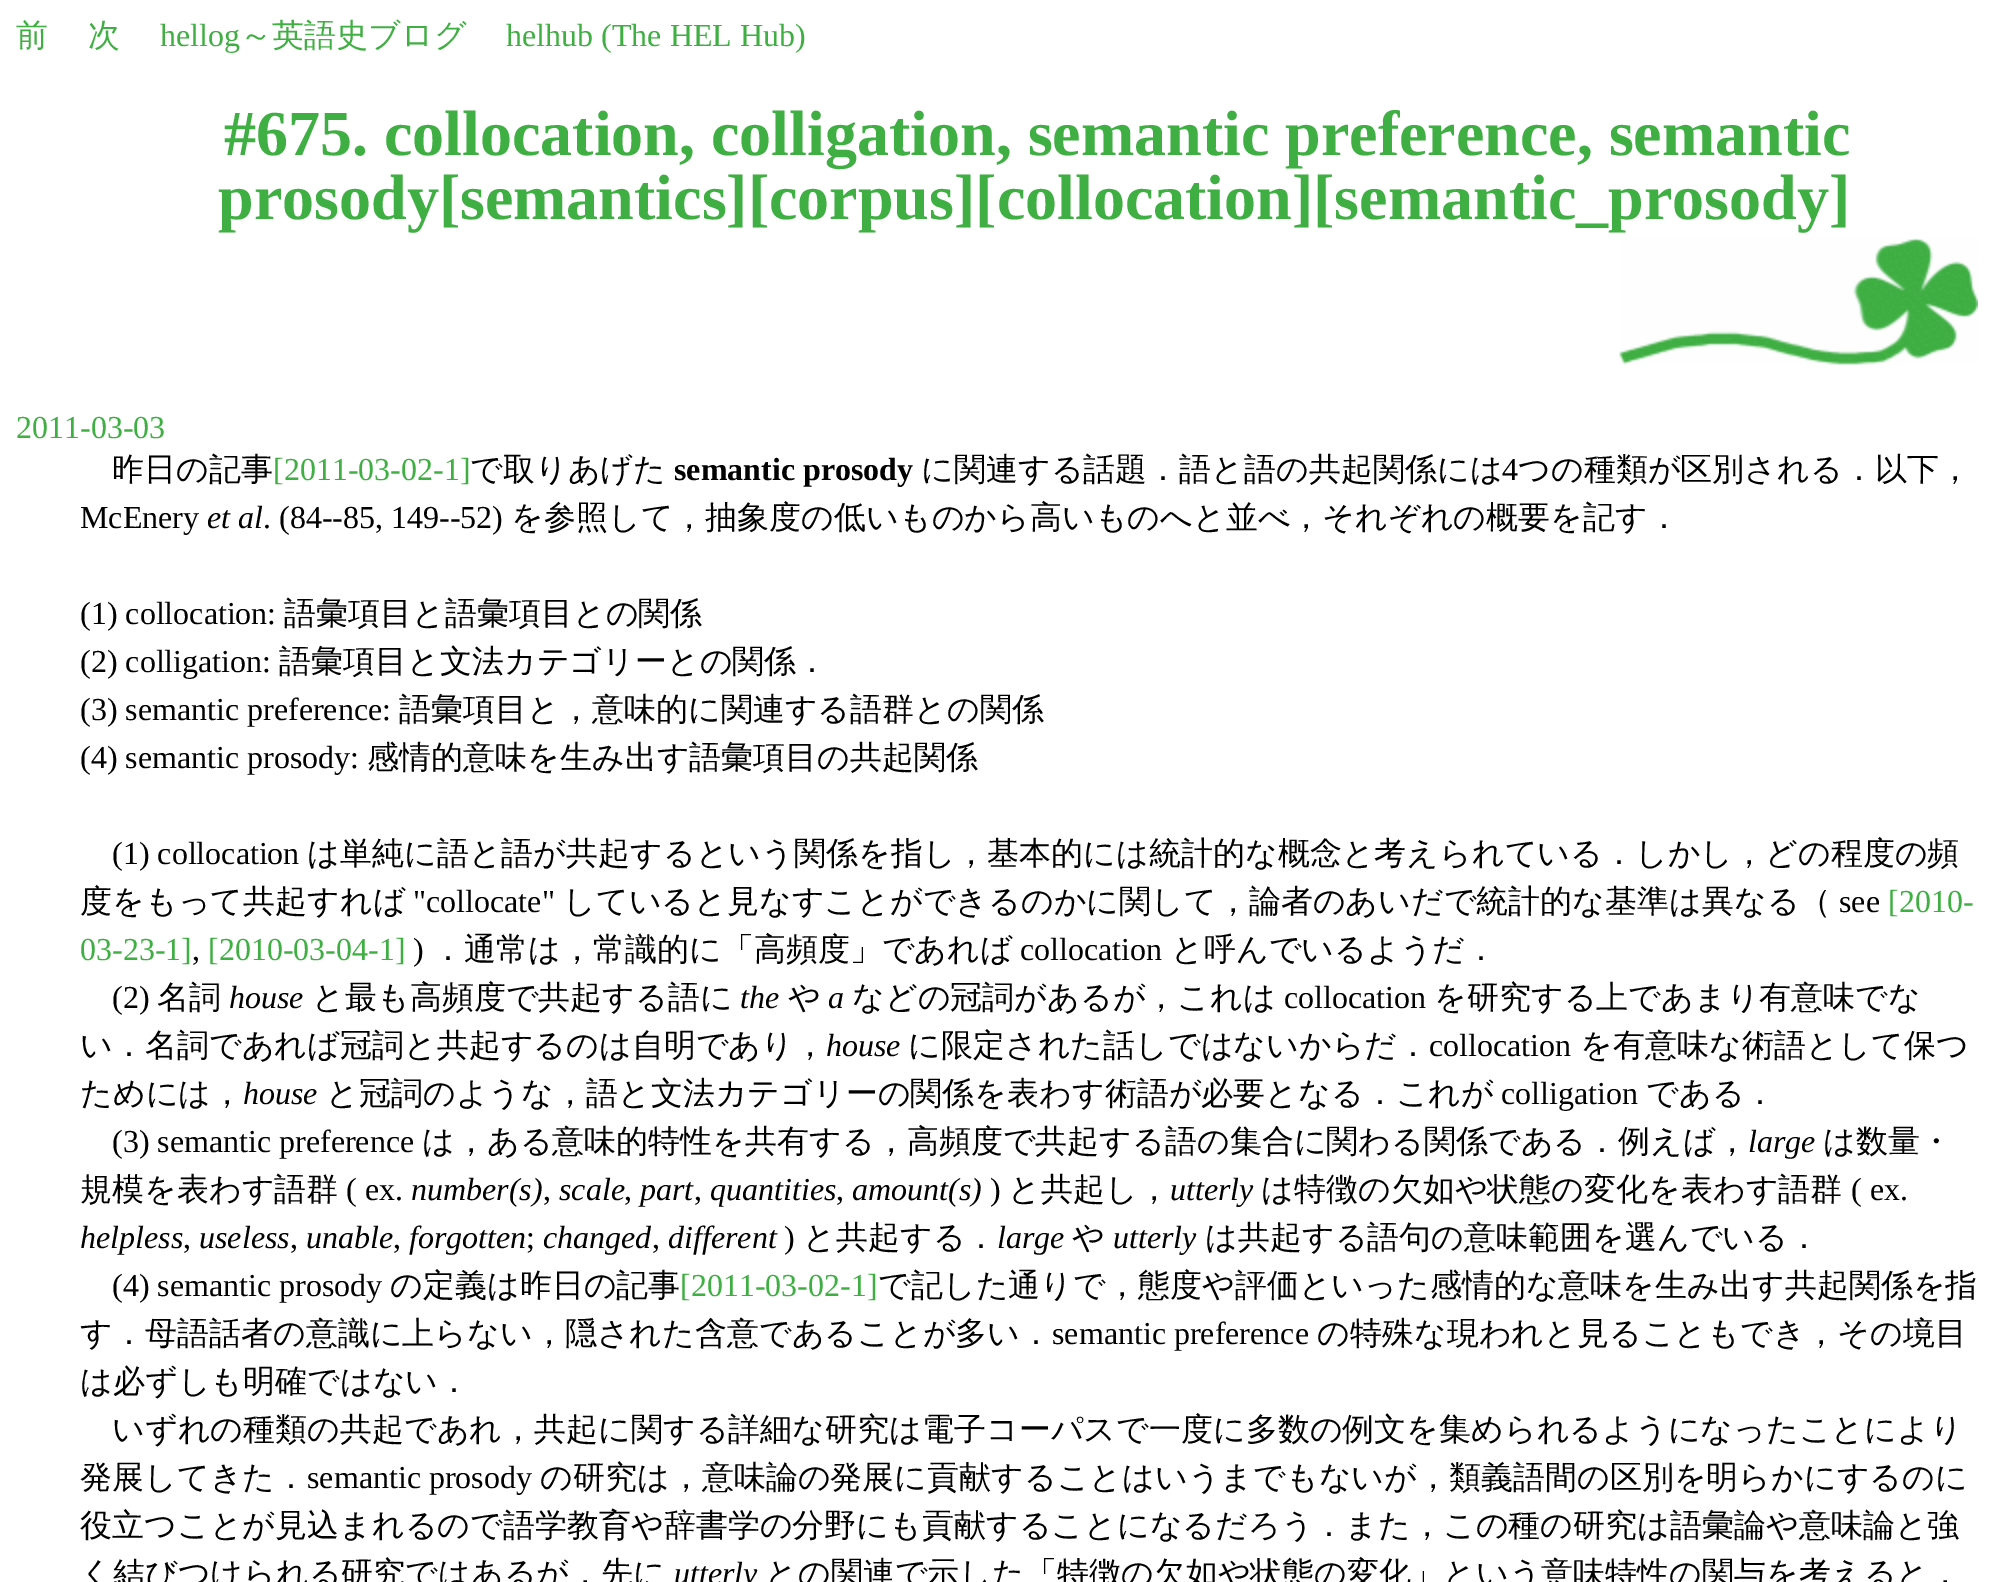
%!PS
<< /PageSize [1993 1582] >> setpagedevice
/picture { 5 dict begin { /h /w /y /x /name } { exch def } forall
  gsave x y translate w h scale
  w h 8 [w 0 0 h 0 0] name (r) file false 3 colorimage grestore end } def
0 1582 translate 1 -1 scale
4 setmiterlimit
1 setgray
0 0 1993 1582 rectfill
/WenQuanYiZenHei-Medium [32 0 0 -32 0 0] selectfont
0.247 0.686 0.263 setrgbcolor
16 46 moveto (前) show
88 46 moveto (次) show
/LiberationSerif-Regular [32 0 0 -32 0 0] selectfont
160 46 moveto (hellog) show
/WenQuanYiZenHei-Medium [32 0 0 -32 0 0] selectfont
240 46 moveto (～英語史ブログ) show
/LiberationSerif-Regular [32 0 0 -32 0 0] selectfont
506 46 moveto (helhub \(The HEL Hub\)) show
(img1.rgb) 1619 238 359 127 picture
/LiberationSerif-Bold [64 0 0 -64 0 0] selectfont
224 155 moveto (#675. collocation, colligation, semantic preference, semantic) show
218 219 moveto (prosody[semantics][corpus][collocation][semantic_prosody]) show
/LiberationSerif-Regular [32 0 0 -32 0 0] selectfont
16 438 moveto (2011-03-03) show
/WenQuanYiZenHei-Medium [32 0 0 -32 0 0] selectfont
0 setgray
112 480 moveto (昨日の記事) show
/LiberationSerif-Regular [32 0 0 -32 0 0] selectfont
0.247 0.686 0.263 setrgbcolor
273 480 moveto ([2011-03-02-1]) show
/WenQuanYiZenHei-Medium [32 0 0 -32 0 0] selectfont
0 setgray
470 480 moveto (で取りあげた) show
/LiberationSerif-Bold [32 0 0 -32 0 0] selectfont
674 480 moveto (semantic prosody) show
/WenQuanYiZenHei-Medium [32 0 0 -32 0 0] selectfont
921 480 moveto (に関連する話題．語と語の共起関係には) show
/LiberationSerif-Regular [32 0 0 -32 0 0] selectfont
1502 480 moveto (4) show
/WenQuanYiZenHei-Medium [32 0 0 -32 0 0] selectfont
1518 480 moveto (つの種類が区別される．以下，) show
/LiberationSerif-Regular [32 0 0 -32 0 0] selectfont
80 528 moveto (McEnery) show
/LiberationSerif-Italic [32 0 0 -32 0 0] selectfont
207 528 moveto (et al) show
/LiberationSerif-Regular [32 0 0 -32 0 0] selectfont
263 528 moveto (. \(84--85, 149--52\)) show
/WenQuanYiZenHei-Medium [32 0 0 -32 0 0] selectfont
511 528 moveto (を参照して，抽象度の低いものから高いものへと並べ，それぞれの概要を記す．) show
/LiberationSerif-Regular [32 0 0 -32 0 0] selectfont
80 624 moveto (\(1\) collocation:) show
/WenQuanYiZenHei-Medium [32 0 0 -32 0 0] selectfont
284 624 moveto (語彙項目と語彙項目との関係) show
/LiberationSerif-Regular [32 0 0 -32 0 0] selectfont
80 672 moveto (\(2\) colligation:) show
/WenQuanYiZenHei-Medium [32 0 0 -32 0 0] selectfont
279 672 moveto (語彙項目と文法カテゴリーとの関係．) show
/LiberationSerif-Regular [32 0 0 -32 0 0] selectfont
80 720 moveto (\(3\) semantic preference:) show
/WenQuanYiZenHei-Medium [32 0 0 -32 0 0] selectfont
399 720 moveto (語彙項目と，意味的に関連する語群との関係) show
/LiberationSerif-Regular [32 0 0 -32 0 0] selectfont
80 768 moveto (\(4\) semantic prosody:) show
/WenQuanYiZenHei-Medium [32 0 0 -32 0 0] selectfont
367 768 moveto (感情的意味を生み出す語彙項目の共起関係) show
/LiberationSerif-Regular [32 0 0 -32 0 0] selectfont
112 864 moveto (\(1\) collocation) show
/WenQuanYiZenHei-Medium [32 0 0 -32 0 0] selectfont
307 864 moveto (は単純に語と語が共起するという関係を指し，基本的には統計的な概念と考えられている．しかし，どの程度の頻) show
80 912 moveto (度をもって共起すれば) show
/LiberationSerif-Regular [32 0 0 -32 0 0] selectfont
413 912 moveto ("collocate") show
/WenQuanYiZenHei-Medium [32 0 0 -32 0 0] selectfont
563 912 moveto (していると見なすことができるのかに関して，論者のあいだで統計的な基準は異なる（) show
/LiberationSerif-Regular [32 0 0 -32 0 0] selectfont
1839 912 moveto (see) show
0.247 0.686 0.263 setrgbcolor
1888 912 moveto ([2010-) show
80 960 moveto (03-23-1]) show
0 setgray
192 960 moveto (,) show
0.247 0.686 0.263 setrgbcolor
208 960 moveto ([2010-03-04-1]) show
0 setgray
413 960 moveto (\)) show
/WenQuanYiZenHei-Medium [32 0 0 -32 0 0] selectfont
432 960 moveto (．通常は，常識的に「高頻度」であれば) show
/LiberationSerif-Regular [32 0 0 -32 0 0] selectfont
1020 960 moveto (collocation) show
/WenQuanYiZenHei-Medium [32 0 0 -32 0 0] selectfont
1171 960 moveto (と呼んでいるようだ．) show
/LiberationSerif-Regular [32 0 0 -32 0 0] selectfont
112 1008 moveto (\(2\)) show
/WenQuanYiZenHei-Medium [32 0 0 -32 0 0] selectfont
157 1008 moveto (名詞) show
/LiberationSerif-Italic [32 0 0 -32 0 0] selectfont
229 1008 moveto (house) show
/WenQuanYiZenHei-Medium [32 0 0 -32 0 0] selectfont
312 1008 moveto (と最も高頻度で共起する語に) show
/LiberationSerif-Italic [32 0 0 -32 0 0] selectfont
740 1008 moveto (the) show
/WenQuanYiZenHei-Medium [32 0 0 -32 0 0] selectfont
788 1008 moveto (や) show
/LiberationSerif-Italic [32 0 0 -32 0 0] selectfont
828 1008 moveto (a) show
/WenQuanYiZenHei-Medium [32 0 0 -32 0 0] selectfont
852 1008 moveto (などの冠詞があるが，これは) show
/LiberationSerif-Regular [32 0 0 -32 0 0] selectfont
1284 1008 moveto (collocation) show
/WenQuanYiZenHei-Medium [32 0 0 -32 0 0] selectfont
1434 1008 moveto (を研究する上であまり有意味でな) show
80 1056 moveto (い．名詞であれば冠詞と共起するのは自明であり，) show
/LiberationSerif-Italic [32 0 0 -32 0 0] selectfont
826 1056 moveto (house) show
/WenQuanYiZenHei-Medium [32 0 0 -32 0 0] selectfont
908 1056 moveto (に限定された話しではないからだ．) show
/LiberationSerif-Regular [32 0 0 -32 0 0] selectfont
1429 1056 moveto (collocation) show
/WenQuanYiZenHei-Medium [32 0 0 -32 0 0] selectfont
1580 1056 moveto (を有意味な術語として保つ) show
80 1104 moveto (ためには，) show
/LiberationSerif-Italic [32 0 0 -32 0 0] selectfont
243 1104 moveto (house) show
/WenQuanYiZenHei-Medium [32 0 0 -32 0 0] selectfont
326 1104 moveto (と冠詞のような，語と文法カテゴリーの関係を表わす術語が必要となる．これが) show
/LiberationSerif-Regular [32 0 0 -32 0 0] selectfont
1501 1104 moveto (colligation) show
/WenQuanYiZenHei-Medium [32 0 0 -32 0 0] selectfont
1646 1104 moveto (である．) show
/LiberationSerif-Regular [32 0 0 -32 0 0] selectfont
112 1152 moveto (\(3\) semantic preference) show
/WenQuanYiZenHei-Medium [32 0 0 -32 0 0] selectfont
422 1152 moveto (は，ある意味的特性を共有する，高頻度で共起する語の集合に関わる関係である．例えば，) show
/LiberationSerif-Italic [32 0 0 -32 0 0] selectfont
1748 1152 moveto (large) show
/WenQuanYiZenHei-Medium [32 0 0 -32 0 0] selectfont
1823 1152 moveto (は数量・) show
80 1200 moveto (規模を表わす語群) show
/LiberationSerif-Regular [32 0 0 -32 0 0] selectfont
346 1200 moveto (\( ex.) show
/LiberationSerif-Italic [32 0 0 -32 0 0] selectfont
411 1200 moveto (number\(s\)) show
/LiberationSerif-Regular [32 0 0 -32 0 0] selectfont
543 1200 moveto (,) show
/LiberationSerif-Italic [32 0 0 -32 0 0] selectfont
559 1200 moveto (scale) show
/LiberationSerif-Regular [32 0 0 -32 0 0] selectfont
624 1200 moveto (,) show
/LiberationSerif-Italic [32 0 0 -32 0 0] selectfont
640 1200 moveto (part) show
/LiberationSerif-Regular [32 0 0 -32 0 0] selectfont
694 1200 moveto (,) show
/LiberationSerif-Italic [32 0 0 -32 0 0] selectfont
710 1200 moveto (quantities) show
/LiberationSerif-Regular [32 0 0 -32 0 0] selectfont
836 1200 moveto (,) show
/LiberationSerif-Italic [32 0 0 -32 0 0] selectfont
852 1200 moveto (amount\(s\)) show
/LiberationSerif-Regular [32 0 0 -32 0 0] selectfont
990 1200 moveto (\)) show
/WenQuanYiZenHei-Medium [32 0 0 -32 0 0] selectfont
1008 1200 moveto (と共起し，) show
/LiberationSerif-Italic [32 0 0 -32 0 0] selectfont
1170 1200 moveto (utterly) show
/WenQuanYiZenHei-Medium [32 0 0 -32 0 0] selectfont
1261 1200 moveto (は特徴の欠如や状態の変化を表わす語群) show
/LiberationSerif-Regular [32 0 0 -32 0 0] selectfont
1851 1200 moveto (\( ex.) show
/LiberationSerif-Italic [32 0 0 -32 0 0] selectfont
80 1248 moveto (helpless) show
/LiberationSerif-Regular [32 0 0 -32 0 0] selectfont
183 1248 moveto (,) show
/LiberationSerif-Italic [32 0 0 -32 0 0] selectfont
199 1248 moveto (useless) show
/LiberationSerif-Regular [32 0 0 -32 0 0] selectfont
290 1248 moveto (,) show
/LiberationSerif-Italic [32 0 0 -32 0 0] selectfont
306 1248 moveto (unable) show
/LiberationSerif-Regular [32 0 0 -32 0 0] selectfont
393 1248 moveto (,) show
/LiberationSerif-Italic [32 0 0 -32 0 0] selectfont
409 1248 moveto (forgotten) show
/LiberationSerif-Regular [32 0 0 -32 0 0] selectfont
526 1248 moveto (;) show
/LiberationSerif-Italic [32 0 0 -32 0 0] selectfont
543 1248 moveto (changed) show
/LiberationSerif-Regular [32 0 0 -32 0 0] selectfont
652 1248 moveto (,) show
/LiberationSerif-Italic [32 0 0 -32 0 0] selectfont
668 1248 moveto (different) show
/LiberationSerif-Regular [32 0 0 -32 0 0] selectfont
784 1248 moveto (\)) show
/WenQuanYiZenHei-Medium [32 0 0 -32 0 0] selectfont
803 1248 moveto (と共起する．) show
/LiberationSerif-Italic [32 0 0 -32 0 0] selectfont
997 1248 moveto (large) show
/WenQuanYiZenHei-Medium [32 0 0 -32 0 0] selectfont
1072 1248 moveto (や) show
/LiberationSerif-Italic [32 0 0 -32 0 0] selectfont
1113 1248 moveto (utterly) show
/WenQuanYiZenHei-Medium [32 0 0 -32 0 0] selectfont
1205 1248 moveto (は共起する語句の意味範囲を選んでいる．) show
/LiberationSerif-Regular [32 0 0 -32 0 0] selectfont
112 1296 moveto (\(4\) semantic prosody) show
/WenQuanYiZenHei-Medium [32 0 0 -32 0 0] selectfont
390 1296 moveto (の定義は昨日の記事) show
/LiberationSerif-Regular [32 0 0 -32 0 0] selectfont
0.247 0.686 0.263 setrgbcolor
680 1296 moveto ([2011-03-02-1]) show
/WenQuanYiZenHei-Medium [32 0 0 -32 0 0] selectfont
0 setgray
878 1296 moveto (で記した通りで，態度や評価といった感情的な意味を生み出す共起関係を指) show
80 1344 moveto (す．母語話者の意識に上らない，隠された含意であることが多い．) show
/LiberationSerif-Regular [32 0 0 -32 0 0] selectfont
1052 1344 moveto (semantic preference) show
/WenQuanYiZenHei-Medium [32 0 0 -32 0 0] selectfont
1317 1344 moveto (の特殊な現われと見ることもでき，その境目) show
80 1392 moveto (は必ずしも明確ではない．) show
112 1440 moveto (いずれの種類の共起であれ，共起に関する詳細な研究は電子コーパスで一度に多数の例文を集められるようになったことにより) show
80 1488 moveto (発展してきた．) show
/LiberationSerif-Regular [32 0 0 -32 0 0] selectfont
307 1488 moveto (semantic prosody) show
/WenQuanYiZenHei-Medium [32 0 0 -32 0 0] selectfont
540 1488 moveto (の研究は，意味論の発展に貢献することはいうまでもないが，類義語間の区別を明らかにするのに) show
80 1536 moveto (役立つことが見込まれるので語学教育や辞書学の分野にも貢献することになるだろう．また，この種の研究は語彙論や意味論と強) show
80 1584 moveto (く結びつけられる研究ではあるが，先に) show
/LiberationSerif-Italic [32 0 0 -32 0 0] selectfont
674 1584 moveto (utterly) show
/WenQuanYiZenHei-Medium [32 0 0 -32 0 0] selectfont
765 1584 moveto (との関連で示した「特徴の欠如や状態の変化」という意味特性の関与を考えると，) show
showpage
